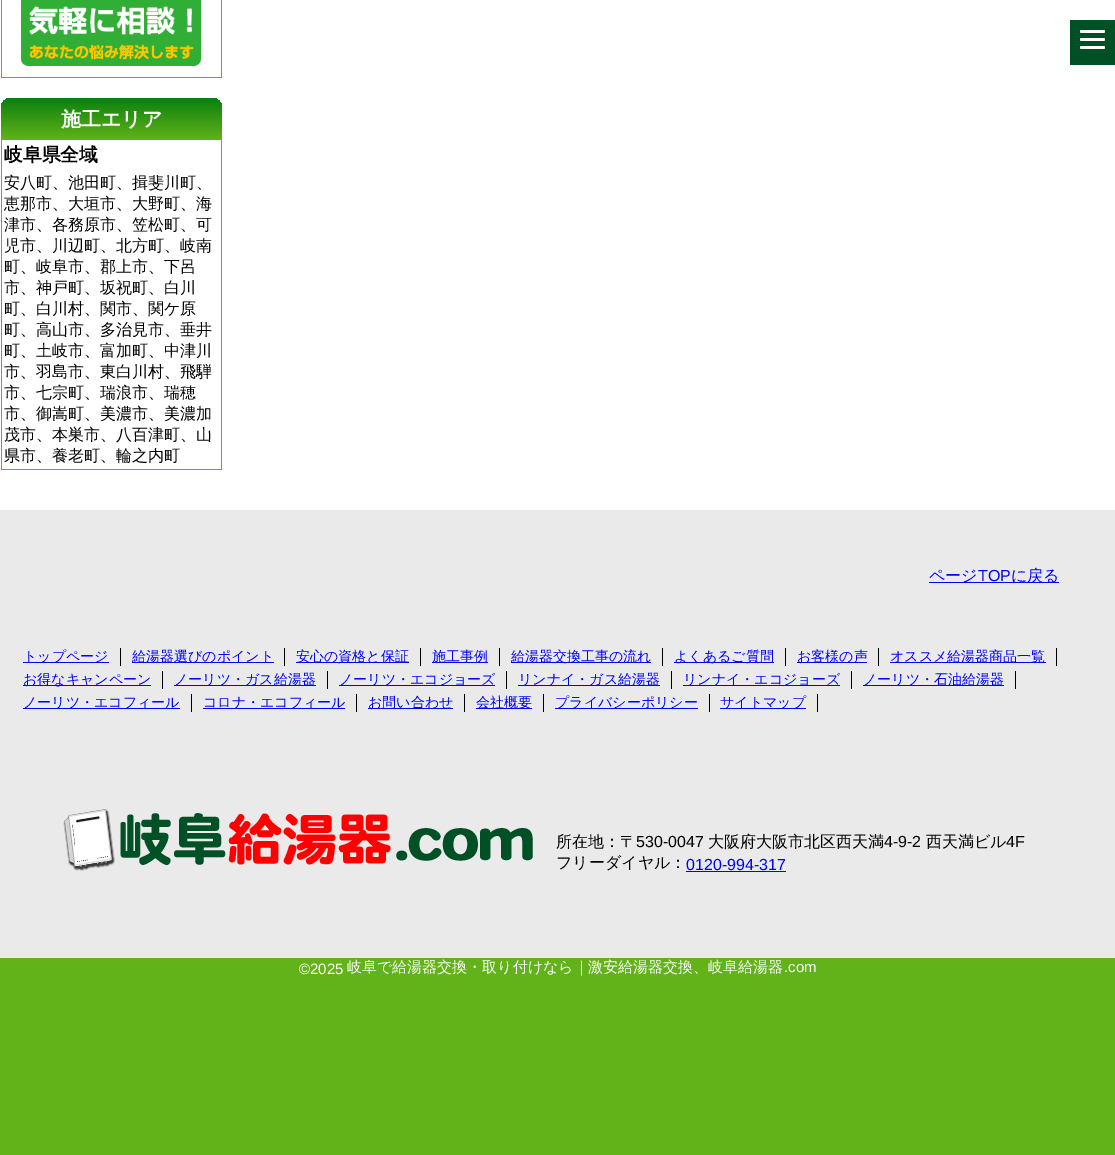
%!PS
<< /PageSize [1115 1155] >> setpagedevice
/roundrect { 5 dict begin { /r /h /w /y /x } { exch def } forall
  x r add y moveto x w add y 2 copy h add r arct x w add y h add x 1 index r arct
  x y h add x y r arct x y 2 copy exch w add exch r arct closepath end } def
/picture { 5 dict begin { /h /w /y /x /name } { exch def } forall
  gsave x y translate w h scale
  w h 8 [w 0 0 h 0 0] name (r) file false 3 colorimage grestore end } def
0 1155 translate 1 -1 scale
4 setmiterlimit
1 setgray
0 0 1115 1155 rectfill
0 0.314 0.149 setrgbcolor
1070 20 45 45 rectfill
1 setgray
1080 30 25 3 1.5 roundrect fill
1080 38 25 3 1.5 roundrect fill
1080 46 25 3 1.5 roundrect fill
0.384 0.702 0.098 setrgbcolor
221 0 1 78 rectfill
1 77 221 1 rectfill
1 0 1 78 rectfill
(img1.rgb) 21 0 180 66 picture
gsave newpath 11 98 moveto 212 98 lineto 217.5 98 222 102.5 222 108 curveto 222 140 lineto 1 140 lineto 1 108 lineto 1 102.5 5.5 98 11 98 curveto closepath clip newpath
<< /ShadingType 2 /ColorSpace /DeviceRGB /Coords [112 98 112 140] /Extend [true true] /Function << /FunctionType 2 /Domain [0 1] /C0 [0.047 0.498 0.055] /C1 [0.384 0.702 0.098] /N 1 >> >> shfill grestore
/WenQuanYiZenHei-Bold [20 0 0 -20 0 0] selectfont
1 setgray
61 126 moveto (施工エリア) show
0.384 0.702 0.098 setrgbcolor
221 140 1 330 rectfill
1 469 221 1 rectfill
1 140 1 330 rectfill
/WenQuanYiZenHei-Bold [18.75 0 0 -18.75 0 0] selectfont
0 setgray
4 161 moveto (岐阜県全域) show
/WenQuanYiZenHei-Medium [16 0 0 -16 0 0] selectfont
4 188 moveto (安八町、池田町、揖斐川町、) show
4 209 moveto (恵那市、大垣市、大野町、海) show
4 230 moveto (津市、各務原市、笠松町、可) show
4 251 moveto (児市、川辺町、北方町、岐南) show
4 272 moveto (町、岐阜市、郡上市、下呂) show
4 293 moveto (市、神戸町、坂祝町、白川) show
4 314 moveto (町、白川村、関市、関ケ原) show
4 335 moveto (町、高山市、多治見市、垂井) show
4 356 moveto (町、土岐市、富加町、中津川) show
4 377 moveto (市、羽島市、東白川村、飛騨) show
4 398 moveto (市、七宗町、瑞浪市、瑞穂) show
4 419 moveto (市、御嵩町、美濃市、美濃加) show
4 440 moveto (茂市、本巣市、八百津町、山) show
4 461 moveto (県市、養老町、輪之内町) show
0.918 setgray
0 510 1115 448 rectfill
0 0 1 setrgbcolor
929 582 130 1 rectfill
929 581 moveto (ページ) show
/LiberationSans-Regular [16 0 0 -16 0 0] selectfont
978 581 moveto (TOP) show
/WenQuanYiZenHei-Medium [16 0 0 -16 0 0] selectfont
1011 581 moveto (に戻る) show
0 setgray
120 648 1 18 rectfill
0 0 1 setrgbcolor
23 662 86 1 rectfill
/WenQuanYiZenHei-Medium [14 0 0 -14 0 0] selectfont
23 661 moveto (トップページ) show
0 setgray
284 648 1 18 rectfill
0 0 1 setrgbcolor
132 662 142 1 rectfill
132 661 moveto (給湯器選びのポイント) show
0 setgray
420 648 1 18 rectfill
0 0 1 setrgbcolor
296 662 113 1 rectfill
296 661 moveto (安心の資格と保証) show
0 setgray
499 648 1 18 rectfill
0 0 1 setrgbcolor
432 662 56 1 rectfill
432 661 moveto (施工事例) show
0 setgray
662 648 1 18 rectfill
0 0 1 setrgbcolor
511 662 140 1 rectfill
511 661 moveto (給湯器交換工事の流れ) show
0 setgray
785 648 1 18 rectfill
0 0 1 setrgbcolor
674 662 100 1 rectfill
674 661 moveto (よくあるご質問) show
0 setgray
878 648 1 18 rectfill
0 0 1 setrgbcolor
797 662 70 1 rectfill
797 661 moveto (お客様の声) show
0 setgray
1056 648 1 18 rectfill
0 0 1 setrgbcolor
890 662 156 1 rectfill
890 661 moveto (オススメ給湯器商品一覧) show
0 setgray
162 671 1 18 rectfill
0 0 1 setrgbcolor
23 685 128 1 rectfill
23 684 moveto (お得なキャンペーン) show
0 setgray
327 671 1 18 rectfill
0 0 1 setrgbcolor
174 685 142 1 rectfill
174 684 moveto (ノーリツ・ガス給湯器) show
0 setgray
506 671 1 18 rectfill
0 0 1 setrgbcolor
339 685 156 1 rectfill
339 684 moveto (ノーリツ・エコジョーズ) show
0 setgray
671 671 1 18 rectfill
0 0 1 setrgbcolor
518 685 142 1 rectfill
518 684 moveto (リンナイ・ガス給湯器) show
0 setgray
851 671 1 18 rectfill
0 0 1 setrgbcolor
683 685 157 1 rectfill
683 684 moveto (リンナイ・エコジョーズ) show
0 setgray
1015 671 1 18 rectfill
0 0 1 setrgbcolor
863 685 141 1 rectfill
863 684 moveto (ノーリツ・石油給湯器) show
0 setgray
191 694 1 18 rectfill
0 0 1 setrgbcolor
23 708 157 1 rectfill
23 707 moveto (ノーリツ・エコフィール) show
0 setgray
356 694 1 18 rectfill
0 0 1 setrgbcolor
203 708 142 1 rectfill
203 707 moveto (コロナ・エコフィール) show
0 setgray
464 694 1 18 rectfill
0 0 1 setrgbcolor
368 708 85 1 rectfill
368 707 moveto (お問い合わせ) show
0 setgray
543 694 1 18 rectfill
0 0 1 setrgbcolor
476 708 56 1 rectfill
476 707 moveto (会社概要) show
0 setgray
709 694 1 18 rectfill
0 0 1 setrgbcolor
555 708 143 1 rectfill
555 707 moveto (プライバシーポリシー) show
0 setgray
817 694 1 18 rectfill
0 0 1 setrgbcolor
720 708 86 1 rectfill
720 707 moveto (サイトマップ) show
(img2.rgb) 63 809 470 62 picture
/WenQuanYiZenHei-Medium [16 0 0 -16 0 0] selectfont
0 setgray
556 847 moveto (所在地：〒) show
/LiberationSans-Regular [16 0 0 -16 0 0] selectfont
636 847 moveto (530-0047) show
/WenQuanYiZenHei-Medium [16 0 0 -16 0 0] selectfont
708 847 moveto (大阪府大阪市北区西天満) show
/LiberationSans-Regular [16 0 0 -16 0 0] selectfont
884 847 moveto (4-9-2) show
/WenQuanYiZenHei-Medium [16 0 0 -16 0 0] selectfont
926 847 moveto (西天満ビル) show
/LiberationSans-Regular [16 0 0 -16 0 0] selectfont
1006 847 moveto (4F) show
/WenQuanYiZenHei-Medium [16 0 0 -16 0 0] selectfont
556 868 moveto (フリーダイヤル：) show
/LiberationSans-Regular [16 0 0 -16 0 0] selectfont
0 0 1 setrgbcolor
686 870 moveto (0120-994-317) show
686 871 100 1 rectfill
0.384 0.702 0.098 setrgbcolor
0 958 1115 197 rectfill
/LiberationSans-Regular [15 0 0 -15 0 0] selectfont
1 setgray
299 974 moveto (©2025) show
/WenQuanYiZenHei-Medium [15 0 0 -15 0 0] selectfont
347 972 moveto (岐阜で給湯器交換・取り付けなら｜激安給湯器交換、岐阜給湯器) show
/LiberationSans-Regular [15 0 0 -15 0 0] selectfont
784 972 moveto (.com) show
showpage
